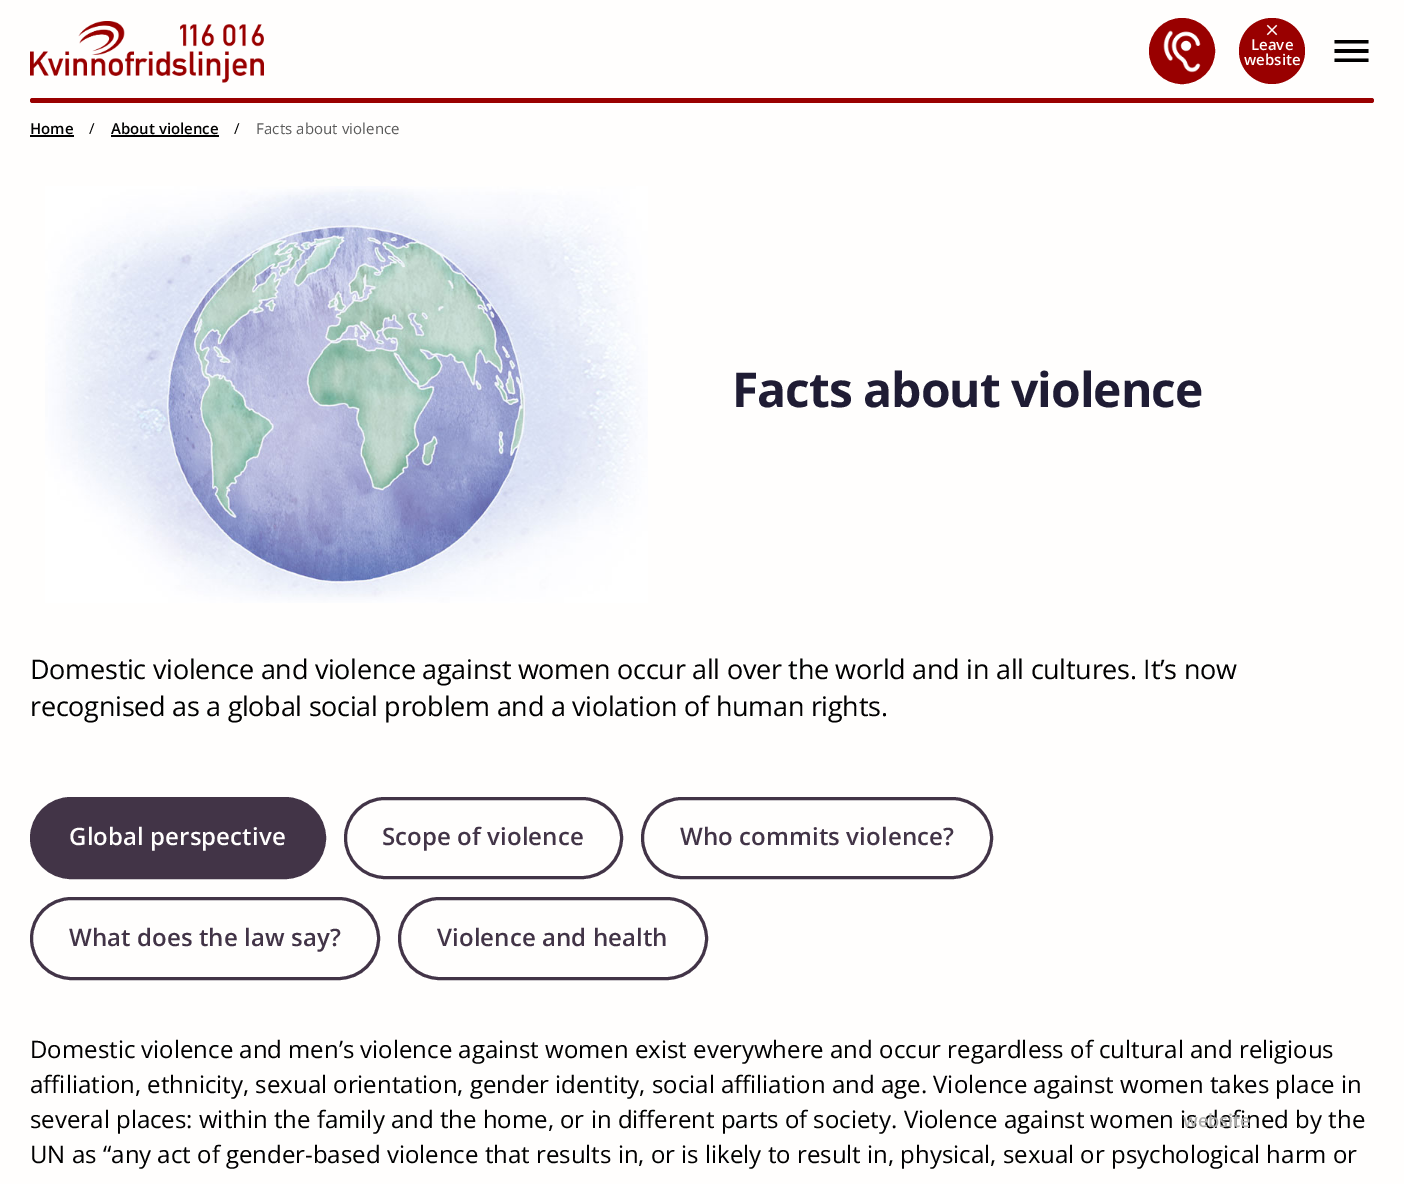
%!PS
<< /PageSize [1404 1184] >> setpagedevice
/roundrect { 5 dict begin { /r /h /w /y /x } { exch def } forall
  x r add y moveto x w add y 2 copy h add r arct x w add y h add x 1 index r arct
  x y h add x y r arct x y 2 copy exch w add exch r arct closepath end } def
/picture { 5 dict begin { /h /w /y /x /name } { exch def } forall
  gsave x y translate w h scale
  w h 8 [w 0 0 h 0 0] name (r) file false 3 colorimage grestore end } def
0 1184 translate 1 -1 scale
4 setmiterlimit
1 0.996 0.992 setrgbcolor
0 0 1404 1184 rectfill
(img1.rgb) 30 21 234 62 picture
0.6 0 0 setrgbcolor
newpath 1182 51 31.5 0 360 arc closepath gsave fill grestore
3 setlinewidth
stroke
(img2.rgb) 1163 30 38 43 picture
newpath 1272 51 33 0 360 arc closepath fill
(img3.rgb) 1266 24 12 12 picture
/OpenSans-SemiBold [15 0 0 -15 0 0] selectfont
1 0.996 0.992 setrgbcolor
1251 50 moveto (Leave) show
1244 65 moveto (website) show
0 setgray
newpath 1334.5 40 moveto 1368.5 40 lineto 1368.5 43.5 lineto 1334.5 43.5 lineto closepath 1334.5 53 moveto 1334.5 49 lineto 1368.5 49 lineto 1368.5 53 lineto closepath 1334.5 62 moveto 1334.5 58.5 lineto 1368.5 58.5 lineto 1368.5 62 lineto closepath fill
0.6 0 0 setrgbcolor
30 98 1344 5 2.5 roundrect fill
0 setgray
30 134 moveto (Home) show
30 135 44 2 rectfill
/OpenSans-Regular [15 0 0 -15 0 0] selectfont
89 134 moveto 0.1 0 (/) ashow
/OpenSans-SemiBold [15 0 0 -15 0 0] selectfont
111 134 moveto (About violence) show
111 135 108 2 rectfill
/OpenSans-Regular [15 0 0 -15 0 0] selectfont
234 134 moveto 0.1 0 (/) ashow
0.353 setgray
256 134 moveto 0.1 0 (Facts about violence) ashow
(img4.rgb) 45 186 603 417 picture
/OpenSans-Bold [48 0 0 -48 0 0] selectfont
0.122 0.11 0.204 setrgbcolor
732 407 moveto -1 0 (Facts about violence) ashow
/OpenSans-Regular [27 0 0 -27 0 0] selectfont
0 setgray
30 679 moveto -0.27 0 (Domestic violence and violence against women occur all over the world and in all cultures. It’s now) ashow
30 716 moveto -0.27 0 (recognised as a global social problem and a violation of human rights.) ashow
0.259 0.204 0.278 setrgbcolor
31.5 798.5 293 79 39.5 roundrect gsave fill grestore
stroke
/OpenSans-SemiBold [24 0 0 -24 0 0] selectfont
1 0.996 0.992 setrgbcolor
69 845 moveto 0.1 0 (Global perspective) ashow
0.259 0.204 0.278 setrgbcolor
345.5 798.5 276 79 39.5 roundrect stroke
382 845 moveto 0.1 0 (Scope of violence) ashow
642.5 798.5 349 79 39.5 roundrect stroke
680 845 moveto 0.1 0 (Who commits violence?) ashow
31.5 898.5 347 80 40 roundrect stroke
69 946 moveto 0.1 0 (What does the law say?) ashow
399.5 898.5 307 80 40 roundrect stroke
437 946 moveto 0.1 0 (Violence and health) ashow
/OpenSans-Regular [24 0 0 -24 0 0] selectfont
0 setgray
30 1058 moveto (Domestic violence and men’s violence against women exist everywhere and occur regardless of cultural and religious) show
30 1093 moveto (affiliation, ethnicity, sexual orientation, gender identity, social affiliation and age. Violence against women takes place in) show
30 1128 moveto (several places: within the family and the home, or in different parts of society. Violence against women is defined by the) show
30 1163 moveto (UN as “any act of gender-based violence that results in, or is likely to result in, physical, sexual or psychological harm or) show
/OpenSans-SemiBold [18 0 0 -18 0 0] selectfont
0.678 0.678 0.675 setrgbcolor
1183 1127 moveto (website) show
showpage
